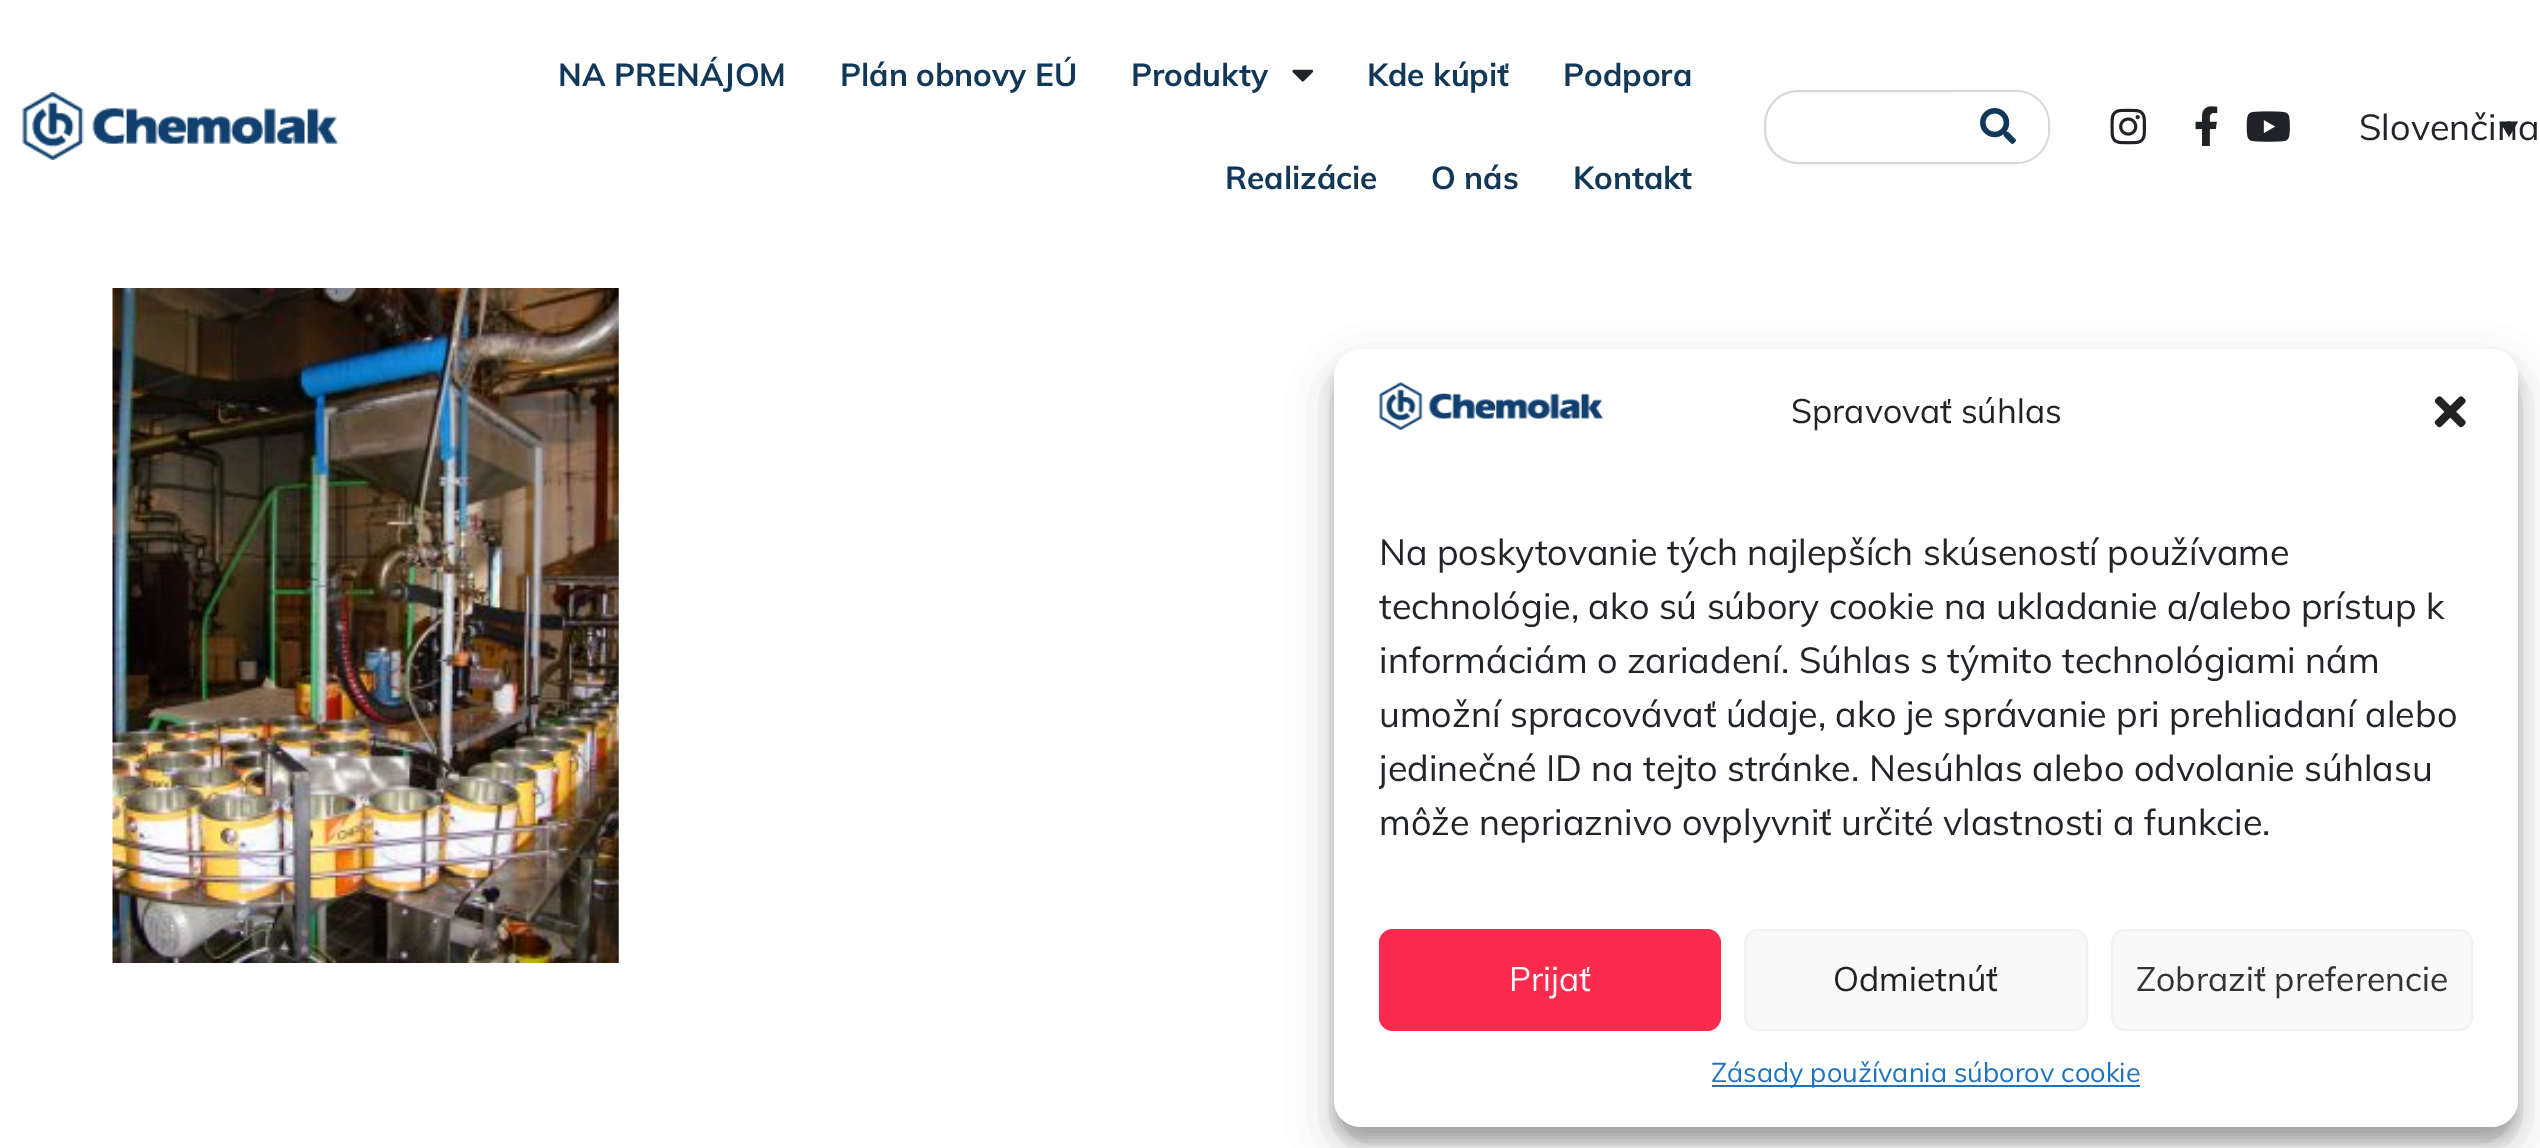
%!PS
<< /PageSize [2540 1148] /PageUsesTransparency true >> setpagedevice
/alpha { dup .setfillconstantalpha .setstrokeconstantalpha } def
/roundrect { 5 dict begin { /r /h /w /y /x } { exch def } forall
  x r add y moveto x w add y 2 copy h add r arct x w add y h add x 1 index r arct
  x y h add x y r arct x y 2 copy exch w add exch r arct closepath end } def
/shadow { 12 dict begin { /a /b /q /h /w /y /x } { exch def } forall gsave /was 0 def
  9 -2 -9 { dup b mul 4 div /e exch def 1 sub .425 mul 2.718 exch exp 1 add a .99 .min exch div /now exch def
    1 1 now sub 1 was sub div sub alpha /was now def
    w h .min e 2 mul add 0 gt { x e sub y e sub w e 2 mul add h e 2 mul add
      q e add b .6 mul add w h .min 2 div e add .min 0 .max roundrect fill } if } for grestore end } def
/picture { 5 dict begin { /h /w /y /x /name } { exch def } forall
  gsave x y translate w h scale
  w h 8 [w 0 0 h 0 0] name (r) file false 3 colorimage grestore end } def
0 .pushpdf14devicefilter
0 1148 translate 1 -1 scale
4 setmiterlimit
1 setgray
0 0 2540 1148 rectfill
(img1.rgb) 22 92 317 68 picture
/Muli-Bold [31.5 0 0 -31.5 0 0] selectfont
0.071 0.22 0.349 setrgbcolor
558 86 moveto (NA PRENÁJOM) show
840 86 moveto (Plán obnovy EÚ) show
1131 86 moveto (Produkty) show
(img2.rgb) 1292 69 22 13 picture
1367 86 moveto (Kde kúpiť) show
1563 86 moveto (Podpora) show
1225 189 moveto (Realizácie) show
1431 189 moveto (O nás) show
1573 189 moveto (Kontakt) show
0.847 setgray
2 setlinewidth
1765 91 284 72 33 roundrect stroke
1 setgray
newpath 1951 92 moveto 2016 92 lineto 2033.5 92 2048 106.5 2048 124 curveto 2048 130 lineto 2048 147.5 2033.5 162 2016 162 curveto 1951 162 lineto closepath fill
(img3.rgb) 1980 108 36 36 picture
(img4.rgb) 2110 108 36 37 picture
(img5.rgb) 2195 106 23 40 picture
(img6.rgb) 2246 111 44 31 picture
/Muli-Regular [36 0 0 -36 0 0] selectfont
0.129 0.141 0.157 setrgbcolor
2359 140 moveto (Slovenčina) show
0.122 0.133 0.149 setrgbcolor
newpath 2500 121.5 moveto 2518 121.5 lineto 2509 137 lineto closepath fill
(img7.rgb) 112 288 507 675 picture
0 setgray
1334 362 1184 779 27 7 0.23 shadow
1334 371 1184 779 27 22.5 0.19 shadow
1 setgray
1334 349 1184 778 27 roundrect fill
(img8.rgb) 1379 382 225 48 picture
/Muli-Regular [33.75 0 0 -33.75 0 0] selectfont
0.133 setgray
1791 423 moveto (Spravovať súhlas) show
(img9.rgb) 2434 396 32 32 picture
/Muli-Regular [36 0 0 -36 0 0] selectfont
0.129 0.141 0.157 setrgbcolor
1379 565 moveto (Na poskytovanie tých najlepších skúseností používame) show
1379 619 moveto (technológie, ako sú súbory cookie na ukladanie a/alebo prístup k) show
1379 673 moveto (informáciám o zariadení. Súhlas s týmito technológiami nám) show
1379 727 moveto (umožní spracovávať údaje, ako je správanie pri prehliadaní alebo) show
gsave
1379 488 1094 396 rectclip
1379 781 moveto (jedinečné ID na tejto stránke. Nesúhlas alebo odvolanie súhlasu) show
grestore
1379 835 moveto (môže nepriaznivo ovplyvniť určité vlastnosti a funkcie.) show
0.984 0.169 0.306 setrgbcolor
1379 929 342 102 14 roundrect fill
/Muli-Regular [33.75 0 0 -33.75 0 0] selectfont
1 setgray
1509 991 moveto (Prijať) show
0.976 setgray
1745 930 342 100 13 roundrect gsave fill grestore
0.949 setgray
stroke
0.133 setgray
1833 991 moveto (Odmietnúť) show
0.976 setgray
2112 930 360 100 13 roundrect gsave fill grestore
0.949 setgray
stroke
0.2 setgray
2136 991 moveto (Zobraziť preferencie) show
0.118 0.451 0.745 setrgbcolor
1712 1085 428 2 rectfill
/Muli-Regular [27 0 0 -27 0 0] selectfont
1711 1082 moveto (Zásady používania súborov cookie) show
.poppdf14devicefilter showpage
